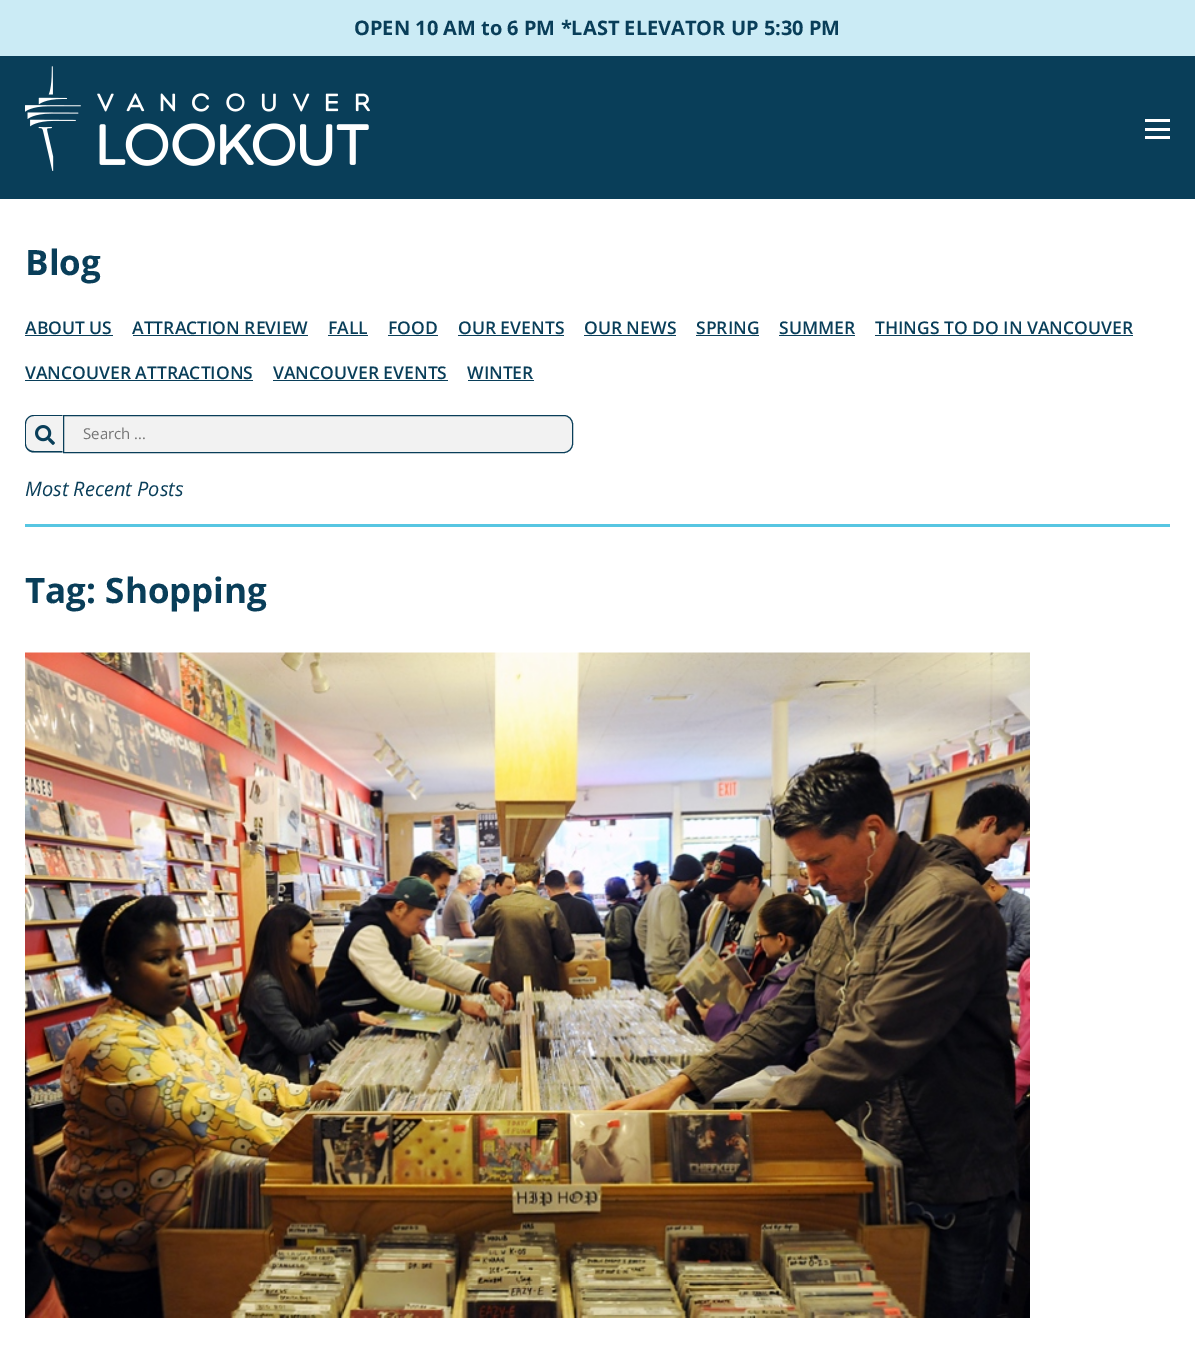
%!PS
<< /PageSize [1195 1345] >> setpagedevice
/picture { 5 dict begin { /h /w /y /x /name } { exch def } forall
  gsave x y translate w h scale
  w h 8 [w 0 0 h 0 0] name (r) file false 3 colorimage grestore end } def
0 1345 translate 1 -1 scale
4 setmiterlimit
1 setgray
0 0 1195 1345 rectfill
0.796 0.922 0.961 setrgbcolor
0 0 1195 56 rectfill
/OpenSans-Bold [20 0 0 -20 0 0] selectfont
0.035 0.243 0.349 setrgbcolor
354 35 moveto (OPEN 10 AM to 6 PM *LAST ELEVATOR UP 5:30 PM) show
0 56 1195 143 rectfill
(img1.rgb) 25 66 345 105 picture
1 setgray
1145 136 25 3 rectfill
1145 128 25 3 rectfill
1145 119 25 3 rectfill
/OpenSans-Bold [35 0 0 -35 0 0] selectfont
0.035 0.243 0.349 setrgbcolor
25 275 moveto (Blog) show
/OpenSans-SemiBold [17.5 0 0 -17.5 0 0] selectfont
25 334 moveto (ABOUT US) show
25 335 88 1 rectfill
132 334 moveto (ATTRACTION REVIEW) show
133 335 175 1 rectfill
328 334 moveto (FALL) show
328 335 40 1 rectfill
388 334 moveto (FOOD) show
388 335 50 1 rectfill
458 334 moveto (OUR EVENTS) show
458 335 106 1 rectfill
584 334 moveto (OUR NEWS) show
584 335 92 1 rectfill
696 334 moveto (SPRING) show
696 335 63 1 rectfill
779 334 moveto (SUMMER) show
779 335 76 1 rectfill
875 334 moveto (THINGS TO DO IN VANCOUVER) show
875 335 258 1 rectfill
25 379 moveto (VANCOUVER ATTRACTIONS) show
25 380 228 1 rectfill
273 379 moveto (VANCOUVER EVENTS) show
273 380 175 1 rectfill
467 379 moveto (WINTER) show
468 380 66 1 rectfill
0.949 setgray
newpath 34 415 moveto 63 415 lineto 63 453 lineto 34 453 lineto 29 453 25 449 25 444 curveto 25 424 lineto 25 419 29 415 34 415 curveto closepath fill
0.035 0.243 0.349 setrgbcolor
newpath 34 415 moveto 62.5 415 lineto 62.5 452.5 lineto 34 452.5 lineto 29 452.5 25 448.5 25 444 curveto 25 424 lineto 25 419 29 415 34 415 curveto closepath 34 416 moveto 62.5 416 lineto 62.5 451 lineto 34 451 lineto 29.5 451 26 448 26 444 curveto 26 424 lineto 26 419.5 29.5 416 34 416 curveto closepath eofill
(img2.rgb) 35 425 20 20 picture
0.949 setgray
newpath 63.5 415.5 moveto 564 415.5 lineto 568.5 415.5 572.5 419.5 572.5 424 curveto 572.5 444 lineto 572.5 448.5 568.5 452.5 564 452.5 curveto 63.5 452.5 lineto closepath gsave fill grestore
0.035 0.243 0.349 setrgbcolor
stroke
/OpenSans-Regular [15 0 0 -15 0 0] selectfont
0.459 setgray
83 439 moveto (Search ...) show
/OpenSans-Italic [20 0 0 -20 0 0] selectfont
0.035 0.243 0.349 setrgbcolor
25 496 moveto (Most Recent Posts) show
0.341 0.776 0.886 setrgbcolor
25 524 1145 3 rectfill
/OpenSans-Bold [35 0 0 -35 0 0] selectfont
0.035 0.243 0.349 setrgbcolor
25 603 moveto (Tag: Shopping) show
(img3.rgb) 25 652 1005 666 picture
showpage
